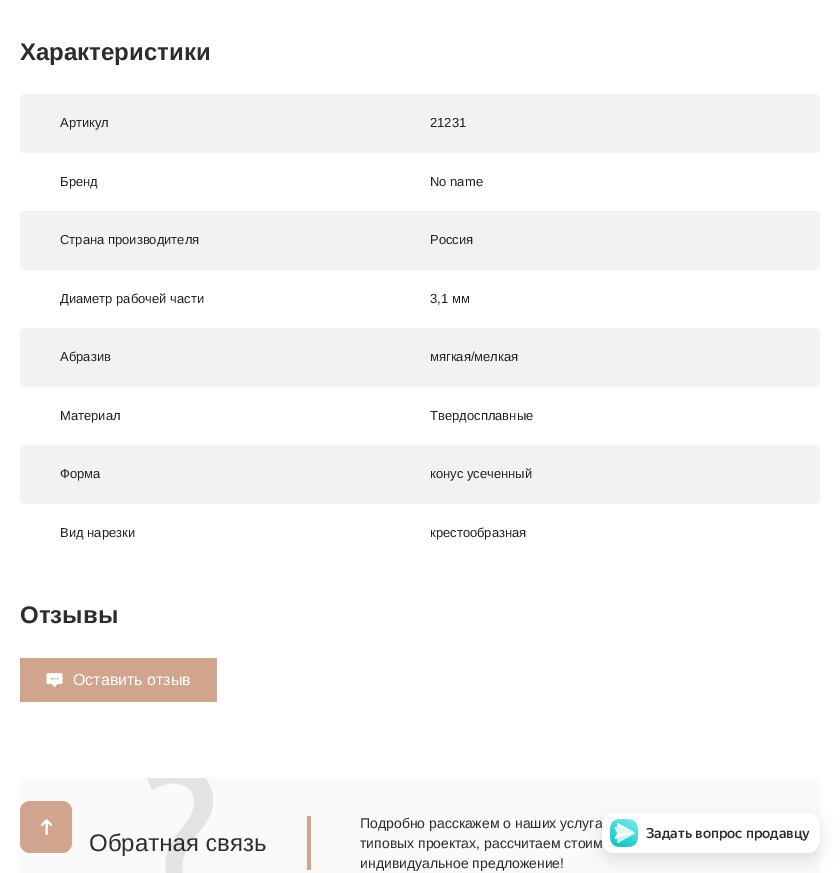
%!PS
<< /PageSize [840 873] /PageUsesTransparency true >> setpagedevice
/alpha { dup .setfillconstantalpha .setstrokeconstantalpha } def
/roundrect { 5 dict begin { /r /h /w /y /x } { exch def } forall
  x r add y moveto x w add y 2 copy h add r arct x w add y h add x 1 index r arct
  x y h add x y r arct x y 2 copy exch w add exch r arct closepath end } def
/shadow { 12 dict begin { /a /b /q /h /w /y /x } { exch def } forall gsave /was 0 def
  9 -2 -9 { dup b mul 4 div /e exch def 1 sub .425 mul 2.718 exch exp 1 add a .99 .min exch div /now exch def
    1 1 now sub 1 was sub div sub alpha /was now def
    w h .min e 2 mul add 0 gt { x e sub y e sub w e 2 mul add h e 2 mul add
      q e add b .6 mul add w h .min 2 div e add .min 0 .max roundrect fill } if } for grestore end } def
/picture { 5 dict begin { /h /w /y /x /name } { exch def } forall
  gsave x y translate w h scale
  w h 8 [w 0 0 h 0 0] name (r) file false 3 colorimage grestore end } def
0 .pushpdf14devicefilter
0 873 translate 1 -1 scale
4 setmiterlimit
1 setgray
0 0 840 873 rectfill
/LiberationSans-Bold [24 0 0 -24 0 0] selectfont
0.176 setgray
20 60 moveto (Характеристики) show
0.949 setgray
20 94 800 59 5 roundrect fill
/LiberationSans-Regular [13 0 0 -13 0 0] selectfont
0.133 setgray
60 127 moveto (Артикул) show
430 127 moveto (21231) show
60 186 moveto (Бренд) show
430 186 moveto (No name) show
0.949 setgray
20 211 800 59 5 roundrect fill
0.133 setgray
60 244 moveto (Страна производителя) show
430 244 moveto (Россия) show
60 303 moveto (Диаметр рабочей части) show
430 303 moveto (3,1 мм) show
0.949 setgray
20 328 800 59 5 roundrect fill
0.133 setgray
60 361 moveto (Абразив) show
430 361 moveto (мягкая/мелкая) show
60 420 moveto (Материал) show
430 420 moveto (Твердосплавные) show
0.949 setgray
20 445 800 59 5 roundrect fill
0.133 setgray
60 478 moveto (Форма) show
430 478 moveto (конус усеченный) show
60 537 moveto (Вид нарезки) show
430 537 moveto (крестообразная) show
/LiberationSans-Bold [24 0 0 -24 0 0] selectfont
0.176 setgray
20 623 moveto (Отзывы) show
0.82 0.643 0.557 setrgbcolor
20 658 197 44 rectfill
(img1.rgb) 46 673 17 14 picture
/LiberationSans-Regular [16 0 0 -16 0 0] selectfont
1 setgray
73 685 moveto (Оставить отзыв) show
0.98 setgray
20 778 800 95 rectfill
/LiberationSans-Regular [24 0 0 -24 0 0] selectfont
0.176 setgray
89 851 moveto (Обратная связь) show
(img2.rgb) 147 778 67 95 picture
0.82 0.643 0.557 setrgbcolor
307 816 4 54 rectfill
/LiberationSans-Regular [14 0 0 -14 0 0] selectfont
0.176 setgray
360 828 moveto (Подробно расскажем о наших услуга) show
360 848 moveto (типовых проектах, рассчитаем стоим) show
360 868 moveto (индивидуальное предложение!) show
0.82 0.643 0.557 setrgbcolor
20 801 52 52 10 roundrect fill
(img3.rgb) 41 819 11 16 picture
0.055 0.082 0.184 setrgbcolor
602 819 218 40 13 9 0.13 shadow
1 setgray
602 813 218 40 13 roundrect fill
(img4.rgb) 610 819 28 28 picture
/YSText-Medium [14 0 0 -14 0 0] selectfont
0.161 0.173 0.2 setrgbcolor
646 838 moveto (Задать вопрос продавцу) show
.poppdf14devicefilter showpage
